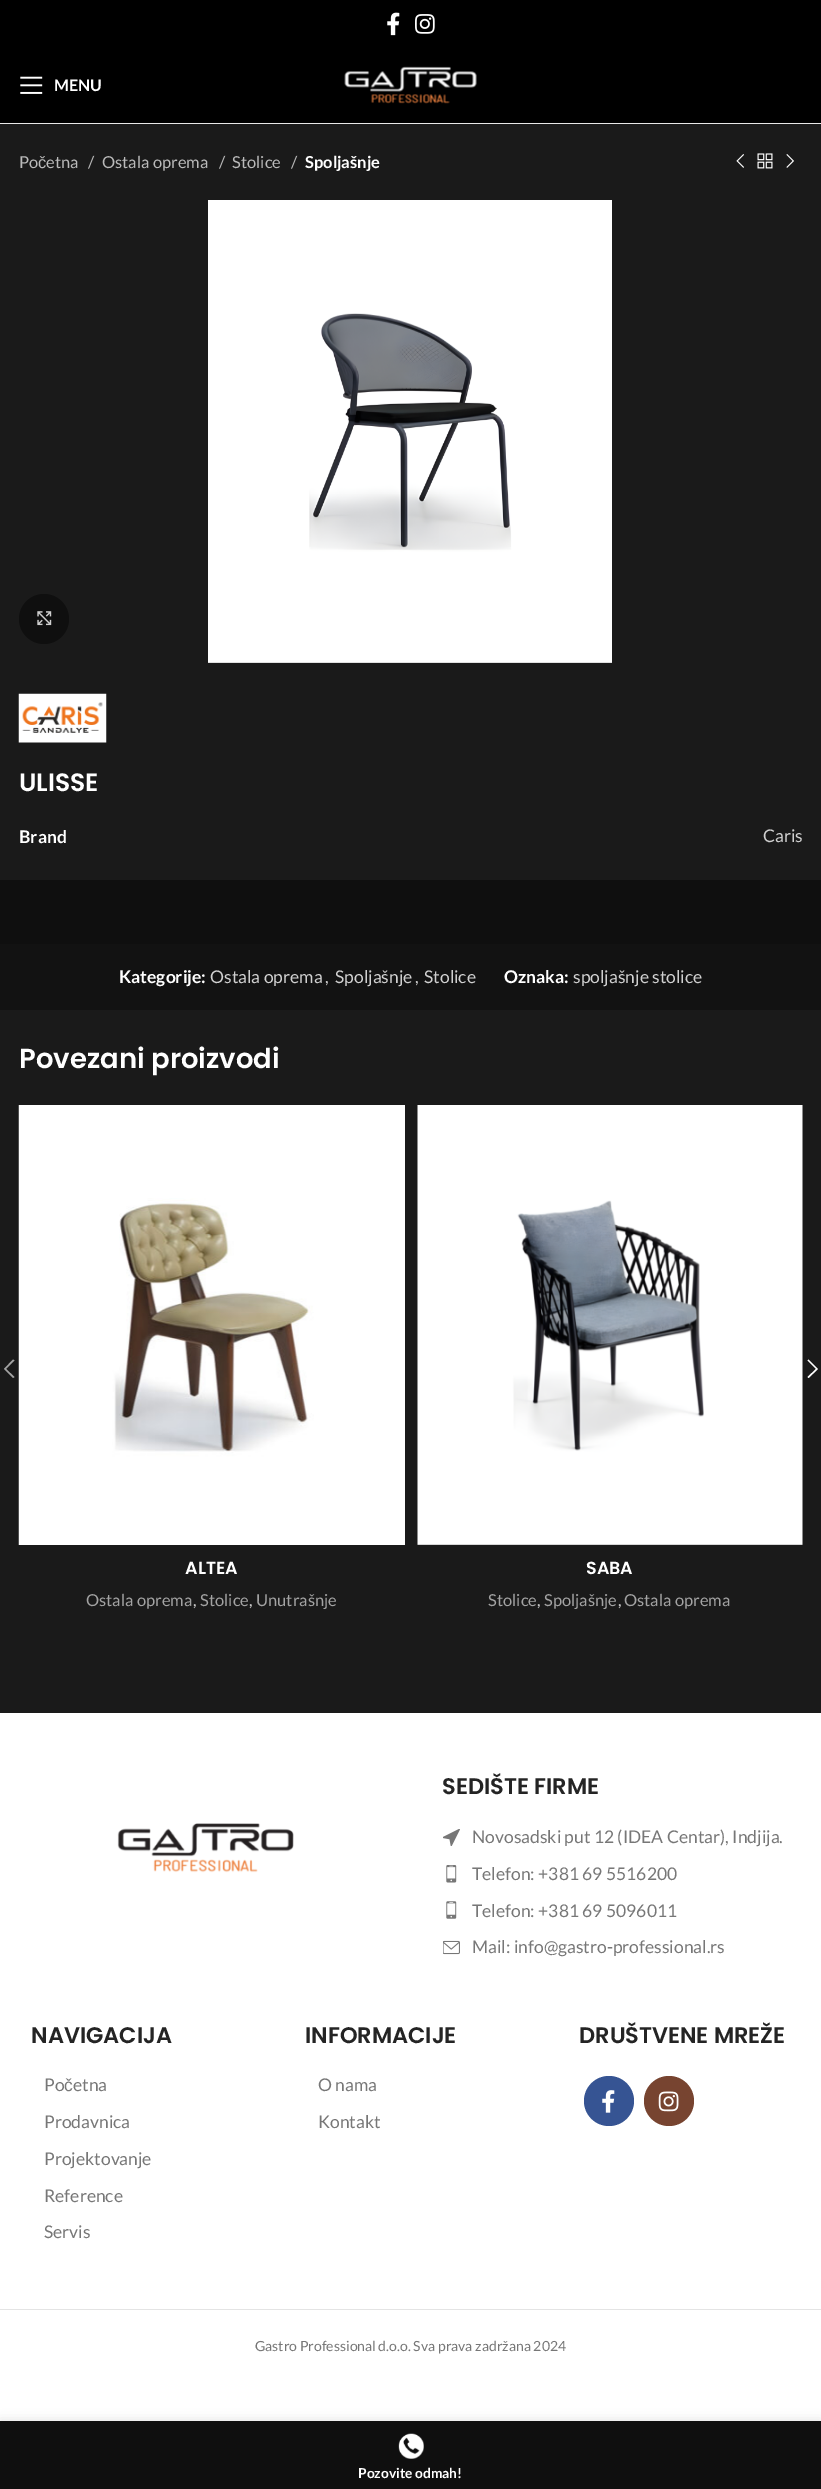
%!PS
<< /PageSize [821 2489] /PageUsesTransparency true >> setpagedevice
/alpha { dup .setfillconstantalpha .setstrokeconstantalpha } def
/roundrect { 5 dict begin { /r /h /w /y /x } { exch def } forall
  x r add y moveto x w add y 2 copy h add r arct x w add y h add x 1 index r arct
  x y h add x y r arct x y 2 copy exch w add exch r arct closepath end } def
/shadow { 12 dict begin { /a /b /q /h /w /y /x } { exch def } forall gsave /was 0 def
  9 -2 -9 { dup b mul 4 div /e exch def 1 sub .425 mul 2.718 exch exp 1 add a .99 .min exch div /now exch def
    1 1 now sub 1 was sub div sub alpha /was now def
    w h .min e 2 mul add 0 gt { x e sub y e sub w e 2 mul add h e 2 mul add
      q e add b .6 mul add w h .min 2 div e add .min 0 .max roundrect fill } if } for grestore end } def
/picture { 5 dict begin { /h /w /y /x /name } { exch def } forall
  gsave x y translate w h scale
  w h 8 [w 0 0 h 0 0] name (r) file false 3 colorimage grestore end } def
0 .pushpdf14devicefilter
0 2489 translate 1 -1 scale
4 setmiterlimit
1 setgray
0 0 821 2489 rectfill
0.102 setgray
0 124 821 1589 rectfill
0 setgray
0 0 821 123 rectfill
(img1.rgb) 387 12 13 24 picture
(img2.rgb) 415 14 20 20 picture
0.91 setgray
0 123 821 1 rectfill
(img3.rgb) 20 76 23 18 picture
/Lato-Bold [16 0 0 -16 0 0] selectfont
1 setgray
54 91 moveto (MENU) show
(img4.rgb) 344 66 133 38 picture
/Lato-Regular [16.5 0 0 -16.5 0 0] selectfont
0.729 setgray
19 168 moveto (Po) show
/LiberationSans-Regular [16.5 0 0 -16.5 0 0] selectfont
38 168 moveto (č) show
/Lato-Regular [16.5 0 0 -16.5 0 0] selectfont
46 168 moveto (etna) show
88 168 moveto (/) show
102 168 moveto (Ostala oprema) show
219 168 moveto (/) show
232 168 moveto (Stolice) show
291 168 moveto (/) show
/Lato-Bold [16.5 0 0 -16.5 0 0] selectfont
1 setgray
305 168 moveto (Spoljašnje) show
(img5.rgb) 736 154 8 14 picture
(img6.rgb) 757 153 16 16 picture
(img7.rgb) 786 154 8 14 picture
0.059 setgray
newpath 44 619 25 0 360 arc closepath fill
(img8.rgb) 37 611 15 15 picture
(img9.rgb) 208 200 404 463 picture
(img10.rgb) 18 693 89 50 picture
/Poppins-SemiBold [25 0 0 -25 0 0] selectfont
1 setgray
19 791 moveto (ULISSE) show
/Lato-Bold [17.5 0 0 -17.5 0 0] selectfont
19 843 moveto (Brand) show
/Lato-Regular [17.5 0 0 -17.5 0 0] selectfont
0.816 setgray
763 842 moveto (Caris) show
0.059 setgray
0 880 821 64 rectfill
0.071 setgray
0 944 821 66 rectfill
/Lato-Bold [17.5 0 0 -17.5 0 0] selectfont
1 setgray
119 983 moveto (Kategorije:) show
/Lato-Regular [17.5 0 0 -17.5 0 0] selectfont
0.816 setgray
210 983 moveto (Ostala oprema) show
325 983 moveto (,) show
335 983 moveto (Spoljašnje) show
415 983 moveto (,) show
424 983 moveto (Stolice) show
/Lato-Bold [17.5 0 0 -17.5 0 0] selectfont
1 setgray
504 983 moveto (Oznaka:) show
/Lato-Regular [17.5 0 0 -17.5 0 0] selectfont
0.816 setgray
573 983 moveto (spoljašnje stolice) show
/Poppins-SemiBold [27.5 0 0 -27.5 0 0] selectfont
1 setgray
19 1068 moveto (Povezani proizvodi) show
0.639 setgray
newpath 14.5 1360.5 moveto 13 1359.5 lineto 4 1369 lineto 13 1378 lineto 14.5 1377 lineto 6 1369 lineto closepath fill
1 setgray
newpath 807.5 1360.5 moveto 816 1369 lineto 807.5 1377 lineto 808.5 1378 lineto 818 1369 lineto 808.5 1359.5 lineto closepath fill
(img11.rgb) 18 1105 387 440 picture
/Poppins-SemiBold [17.5 0 0 -17.5 0 0] selectfont
185 1574 moveto (ALTEA) show
/Lato-Regular [16.5 0 0 -16.5 0 0] selectfont
0.639 setgray
86 1606 moveto (Ostala oprema) show
0.816 setgray
193 1606 moveto (,) show
0.639 setgray
200 1606 moveto (Stolice) show
0.816 setgray
249 1606 moveto (,) show
0.639 setgray
256 1606 moveto (Unutrašnje) show
(img12.rgb) 417 1105 386 440 picture
/Poppins-SemiBold [17.5 0 0 -17.5 0 0] selectfont
1 setgray
586 1574 moveto (SABA) show
/Lato-Regular [16.5 0 0 -16.5 0 0] selectfont
0.639 setgray
488 1606 moveto (Stolice) show
0.816 setgray
537 1606 moveto (,) show
0.639 setgray
544 1606 moveto (Spoljašnje) show
0.816 setgray
618 1606 moveto (,) show
0.639 setgray
624 1606 moveto (Ostala oprema) show
(img13.rgb) 117 1823 177 50 picture
/Poppins-SemiBold [22.5 0 0 -22.5 0 0] selectfont
0.141 setgray
442 1794 moveto (SEDIŠTE FIRME) show
(img14.rgb) 443 1829 17 17 picture
/Lato-Regular [17.5 0 0 -17.5 0 0] selectfont
0.467 setgray
472 1843 moveto (Novosadski put 12 \(IDEA Centar\), Indjija.) show
(img15.rgb) 446 1865 11 18 picture
472 1880 moveto (Telefon: +381 69 5516200) show
(img16.rgb) 446 1901 11 18 picture
472 1917 moveto (Telefon: +381 69 5096011) show
(img17.rgb) 443 1940 17 15 picture
472 1953 moveto (Mail: info@gastro-professional.rs) show
/Poppins-SemiBold [22.5 0 0 -22.5 0 0] selectfont
0.141 setgray
31 2043 moveto (NAVIGACIJA) show
/Lato-Regular [17.5 0 0 -17.5 0 0] selectfont
0.467 setgray
44 2091 moveto (Po) show
/LiberationSans-Regular [17.5 0 0 -17.5 0 0] selectfont
64 2091 moveto (č) show
/Lato-Regular [17.5 0 0 -17.5 0 0] selectfont
73 2091 moveto (etna) show
44 2128 moveto (Prodavnica) show
44 2165 moveto (Projektovanje) show
44 2202 moveto (Reference) show
44 2238 moveto (Servis) show
/Poppins-SemiBold [22.5 0 0 -22.5 0 0] selectfont
0.141 setgray
305 2043 moveto (INFORMACIJE) show
/Lato-Regular [17.5 0 0 -17.5 0 0] selectfont
0.467 setgray
318 2091 moveto (O nama) show
318 2128 moveto (Kontakt) show
/Poppins-SemiBold [22.5 0 0 -22.5 0 0] selectfont
0.141 setgray
579 2043 moveto (DRUŠTVENE MREŽE) show
0.212 0.329 0.576 setrgbcolor
newpath 609 2101 25 0 360 arc closepath fill
(img18.rgb) 602 2090 13 23 picture
0.467 0.267 0.188 setrgbcolor
newpath 669 2101 25 0 360 arc closepath fill
(img19.rgb) 658 2091 21 21 picture
0.894 setgray
0 2309 821 1 rectfill
/Lato-Regular [14 0 0 -14 0 0] selectfont
0.467 setgray
255 2351 moveto (Gastro Professional d.o.o. Sva prava zadržana 2024) show
0 setgray
0 2421 821 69 0 5.5 0.12 shadow
0.059 setgray
0 2421 821 68 rectfill
(img20.rgb) 398 2433 26 26 picture
/Lato-Bold [13.75 0 0 -13.75 0 0] selectfont
1 setgray
358 2478 moveto (Pozovite odmah!) show
.poppdf14devicefilter showpage
